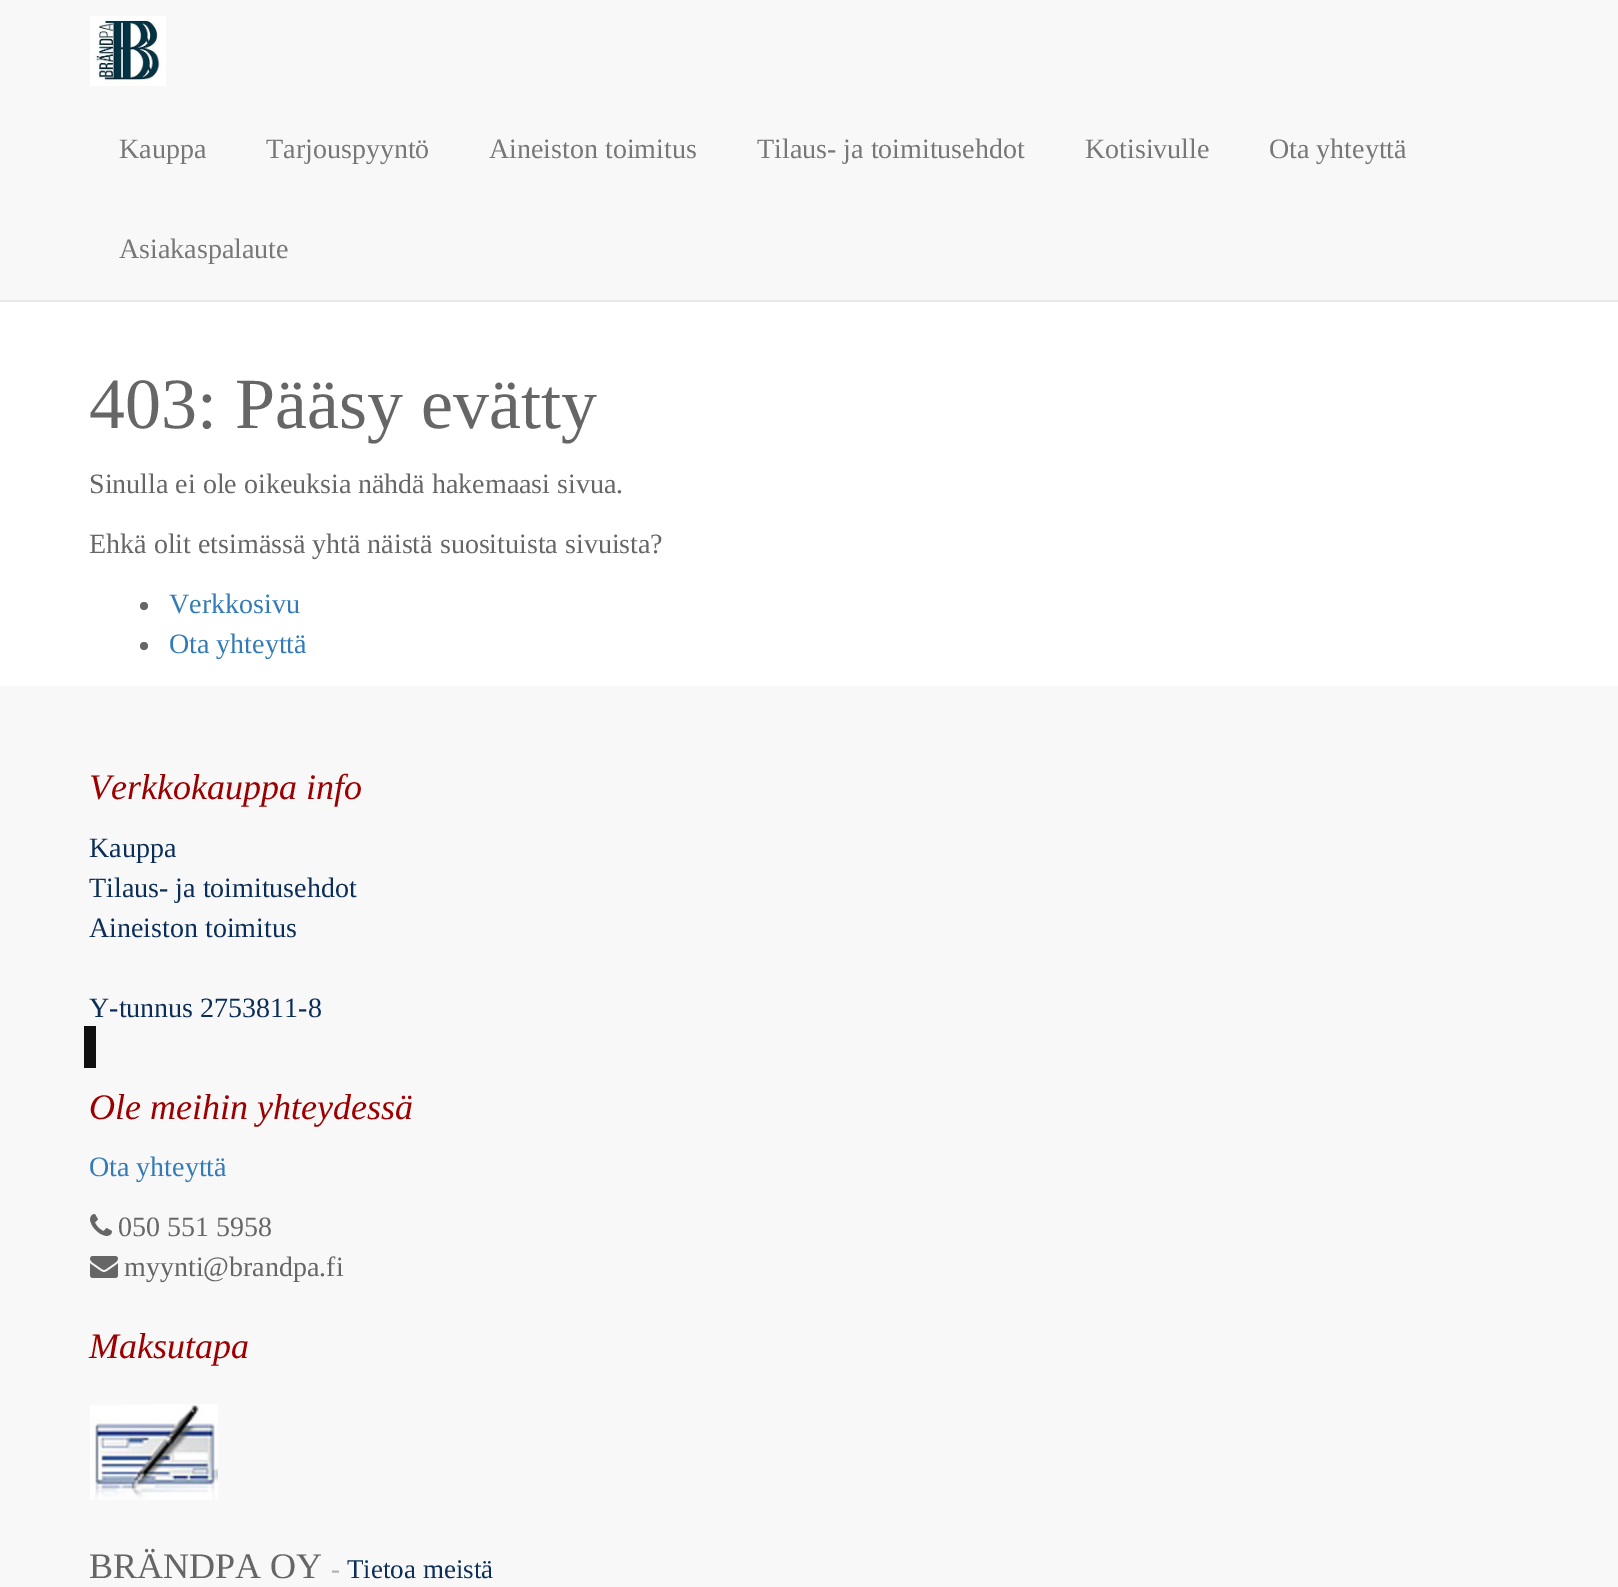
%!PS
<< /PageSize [1618 1587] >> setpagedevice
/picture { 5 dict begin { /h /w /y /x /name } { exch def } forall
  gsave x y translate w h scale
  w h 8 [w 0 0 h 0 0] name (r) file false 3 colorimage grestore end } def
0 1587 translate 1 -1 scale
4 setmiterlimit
1 setgray
0 0 1618 1587 rectfill
0.973 setgray
0 0 1618 300 rectfill
0.906 setgray
0 300 1618 2 rectfill
(img1.rgb) 90 16 76 70 picture
/LiberationSerif-Regular [28 0 0 -28 0 0] selectfont
0.467 setgray
119 158 moveto (Kauppa) show
266 158 moveto (Tarjouspyyntö) show
489 158 moveto (Aineiston toimitus) show
757 158 moveto (Tilaus- ja toimitusehdot) show
1085 158 moveto (Kotisivulle) show
1269 158 moveto (Ota yhteyttä) show
119 258 moveto (Asiakaspalaute) show
/LiberationSerif-Regular [72 0 0 -72 0 0] selectfont
0.4 setgray
89 428 moveto (403: Pääsy evätty) show
/LiberationSerif-Regular [28 0 0 -28 0 0] selectfont
89 493 moveto (Sinulla ei ole oikeuksia nähdä hakemaasi sivua.) show
89 553 moveto (Ehkä olit etsimässä yhtä näistä suosituista sivuista?) show
newpath 144 606 4 0 360 arc closepath fill
0.2 0.478 0.718 setrgbcolor
169 613 moveto (Verkkosivu) show
0.4 setgray
newpath 144 646 4 0 360 arc closepath fill
0.2 0.478 0.718 setrgbcolor
169 653 moveto (Ota yhteyttä) show
0.973 setgray
0 686 1618 901 rectfill
/LiberationSerif-Italic [36 0 0 -36 0 0] selectfont
0.612 0 0 setrgbcolor
89 799 moveto (Verkkokauppa info) show
/LiberationSerif-Regular [28 0 0 -28 0 0] selectfont
0.043 0.18 0.349 setrgbcolor
89 857 moveto (Kauppa) show
89 897 moveto (Tilaus- ja toimitusehdot) show
89 937 moveto (Aineiston toimitus) show
89 1017 moveto (Y-tunnus 2753811-8) show
0.063 setgray
84 1026 12 42 rectfill
/LiberationSerif-Italic [36 0 0 -36 0 0] selectfont
0.612 0 0 setrgbcolor
89 1119 moveto (Ole meihin yhteydessä) show
/LiberationSerif-Regular [28 0 0 -28 0 0] selectfont
0.2 0.478 0.718 setrgbcolor
89 1176 moveto (Ota yhteyttä) show
(img2.rgb) 90 1214 22 22 picture
0.4 setgray
118 1236 moveto (050 551 5958) show
(img3.rgb) 90 1256 28 22 picture
124 1276 moveto (myynti@brandpa.fi) show
/LiberationSerif-Italic [36 0 0 -36 0 0] selectfont
0.612 0 0 setrgbcolor
89 1358 moveto (Maksutapa) show
(img4.rgb) 90 1404 128 96 picture
/LiberationSerif-Regular [36 0 0 -36 0 0] selectfont
0.4 setgray
89 1578 moveto (BRÄNDPA OY) show
/LiberationSerif-Regular [27 0 0 -27 0 0] selectfont
0.702 setgray
331 1578 moveto (-) show
0.043 0.18 0.349 setrgbcolor
347 1578 moveto (Tietoa meistä) show
showpage
